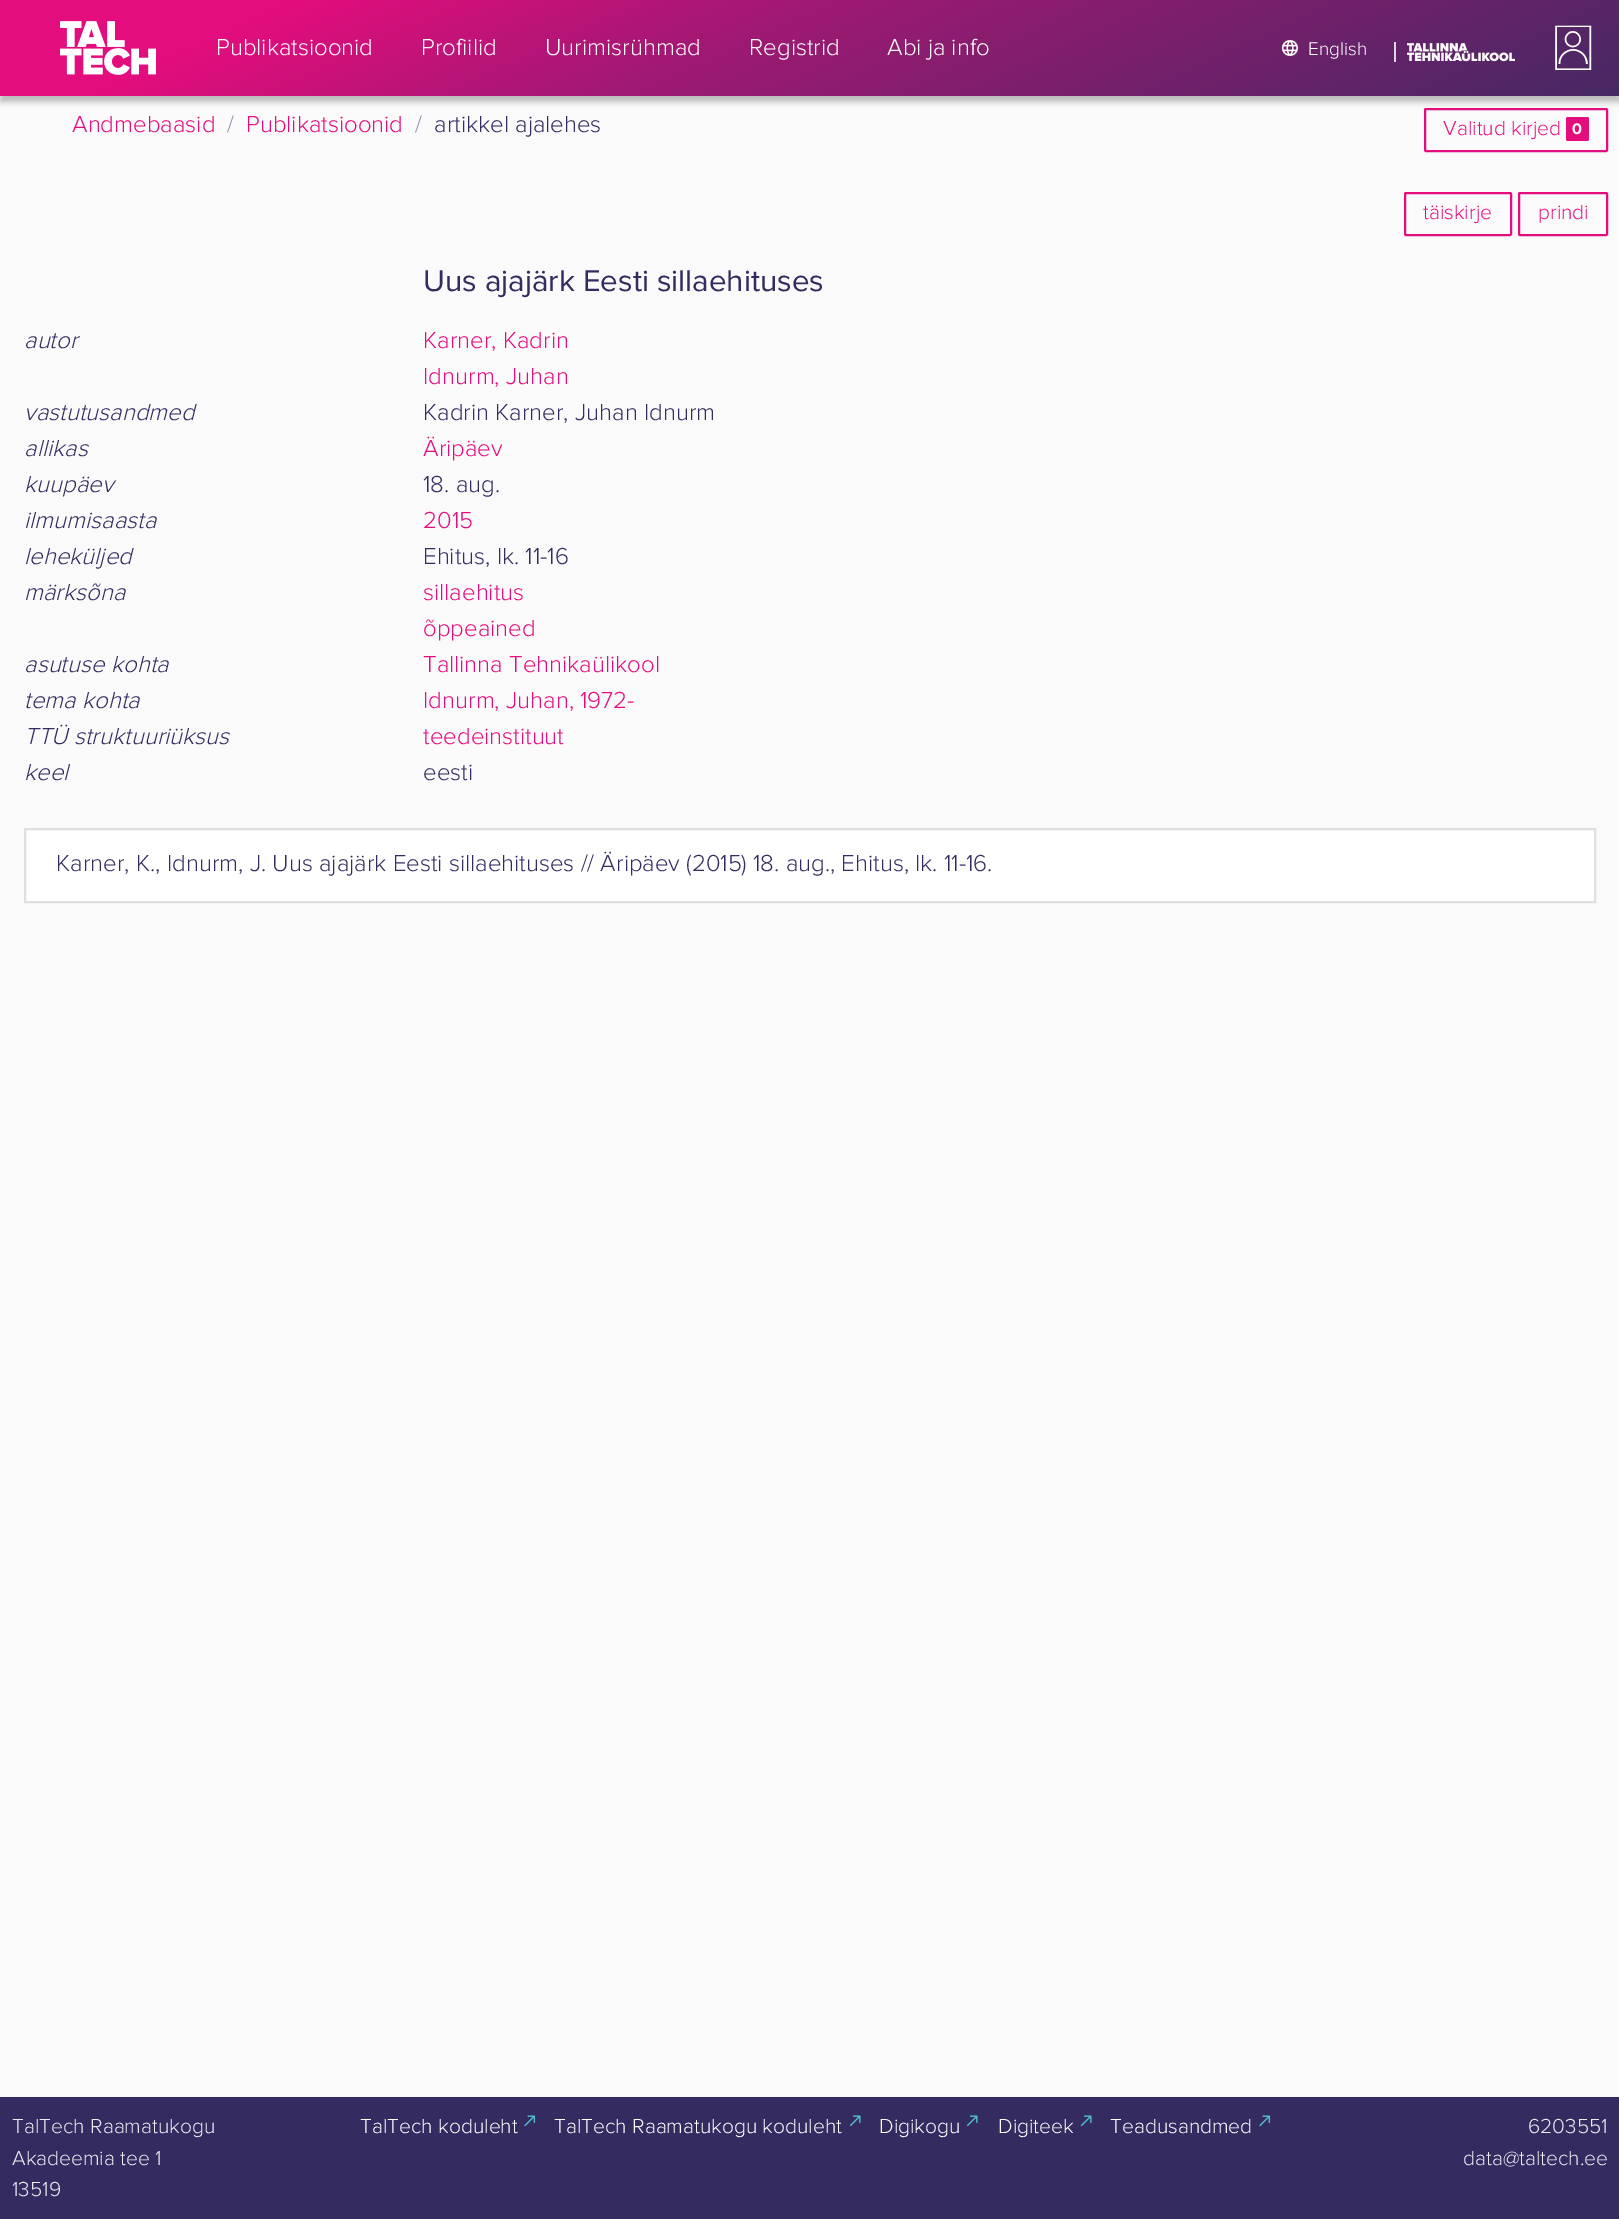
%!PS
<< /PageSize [1619 2219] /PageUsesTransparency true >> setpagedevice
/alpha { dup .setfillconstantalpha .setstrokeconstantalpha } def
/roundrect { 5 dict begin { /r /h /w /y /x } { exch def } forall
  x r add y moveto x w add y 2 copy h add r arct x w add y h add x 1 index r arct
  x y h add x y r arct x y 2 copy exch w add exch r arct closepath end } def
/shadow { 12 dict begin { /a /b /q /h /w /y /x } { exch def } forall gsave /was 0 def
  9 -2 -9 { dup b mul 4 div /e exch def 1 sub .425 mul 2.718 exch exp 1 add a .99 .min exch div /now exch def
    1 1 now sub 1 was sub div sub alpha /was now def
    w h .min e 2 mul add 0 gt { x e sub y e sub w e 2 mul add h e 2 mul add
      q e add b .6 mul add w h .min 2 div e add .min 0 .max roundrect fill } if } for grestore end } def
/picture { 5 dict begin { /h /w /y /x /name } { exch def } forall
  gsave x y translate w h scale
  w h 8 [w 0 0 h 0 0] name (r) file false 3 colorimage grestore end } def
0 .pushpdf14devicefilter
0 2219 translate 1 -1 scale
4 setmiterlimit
0.984 0.98 0.984 setrgbcolor
0 0 1619 2219 rectfill
0 setgray
0 6 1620 96 0 3 0.25 shadow
gsave newpath 0 0 moveto 1619 0 lineto 1619 96 lineto 0 96 lineto closepath clip newpath
<< /ShadingType 2 /ColorSpace /DeviceRGB /Coords [647 -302 1015 489] /Extend [true true] /Function << /FunctionType 3 /Domain [0 1] /Functions [<< /FunctionType 2 /Domain [0 1] /C0 [0.894 0.051 0.494] /C1 [0.894 0.051 0.494] /N 1 >> << /FunctionType 2 /Domain [0 1] /C0 [0.894 0.051 0.494] /C1 [0.631 0.098 0.451] /N 1 >> << /FunctionType 2 /Domain [0 1] /C0 [0.631 0.098 0.451] /C1 [0.306 0.153 0.396] /N 1 >> << /FunctionType 2 /Domain [0 1] /C0 [0.306 0.153 0.396] /C1 [0.204 0.173 0.38] /N 1 >>] /Bounds [0.14 0.39 0.84] /Encode [0 1 0 1 0 1 0 1] >> >> shfill grestore
(img1.rgb) 60 21 96 54 picture
/ProximaNova-Light [24 0 0 -24 0 0] selectfont
1 setgray
216 55 moveto (Publikatsioonid) show
421 55 moveto (Profiilid) show
545 55 moveto (Uurimisrühmad) show
749 55 moveto (Registrid) show
887 55 moveto (Abi ja info) show
(img2.rgb) 1281 40 17 16 picture
/ProximaNova-Light [19 0 0 -19 0 0] selectfont
1308 55 moveto (English) show
0.855 0.855 0.894 setrgbcolor
1394 42 2 20 rectfill
(img3.rgb) 1407 43 108 19 picture
(img4.rgb) 1555 25 37 45 picture
/ProximaNova-Light [24 0 0 -24 0 0] selectfont
0.894 0.051 0.494 setrgbcolor
72 132 moveto (Andmebaasid) show
0.565 0.573 0.678 setrgbcolor
227 132 moveto (/) show
0.894 0.051 0.494 setrgbcolor
246 132 moveto (Publikatsioonid) show
0.565 0.573 0.678 setrgbcolor
415 132 moveto (/) show
0.204 0.173 0.38 setrgbcolor
434 132 moveto (artikkel ajalehes) show
0.894 0.051 0.494 setrgbcolor
2 setlinewidth
1425 109 182 42 1 roundrect stroke
/ProximaNova-Light [21 0 0 -21 0 0] selectfont
1443 135 moveto (Valitud kirjed) show
1566 117 23 24 2 roundrect fill
/ProximaNova-Bold [16 0 0 -16 0 0] selectfont
1 setgray
1572 134 moveto (0) show
0.894 0.051 0.494 setrgbcolor
1405 193 106 42 1 roundrect stroke
/ProximaNova-Light [21 0 0 -21 0 0] selectfont
1423 219 moveto (täiskirje) show
1519 193 88 42 1 roundrect stroke
1538 219 moveto (prindi) show
/ProximaNova-Regular [31.25 0 0 -31.25 0 0] selectfont
0.204 0.173 0.38 setrgbcolor
423 291 moveto (Uus ajajärk Eesti sillaehituses) show
/ProximaNova-LightItalic [24 0 0 -24 0 0] selectfont
24 348 moveto (autor) show
/ProximaNova-Light [24 0 0 -24 0 0] selectfont
0.894 0.051 0.494 setrgbcolor
423 348 moveto (Karner, Kadrin) show
423 384 moveto (Idnurm, Juhan) show
/ProximaNova-LightItalic [24 0 0 -24 0 0] selectfont
0.204 0.173 0.38 setrgbcolor
24 420 moveto (vastutusandmed) show
/ProximaNova-Light [24 0 0 -24 0 0] selectfont
423 420 moveto (Kadrin Karner, Juhan Idnurm) show
/ProximaNova-LightItalic [24 0 0 -24 0 0] selectfont
24 456 moveto (allikas) show
/ProximaNova-Light [24 0 0 -24 0 0] selectfont
0.894 0.051 0.494 setrgbcolor
423 456 moveto (Äripäev) show
/ProximaNova-LightItalic [24 0 0 -24 0 0] selectfont
0.204 0.173 0.38 setrgbcolor
24 492 moveto (kuupäev) show
/ProximaNova-Light [24 0 0 -24 0 0] selectfont
423 492 moveto (18. aug.) show
/ProximaNova-LightItalic [24 0 0 -24 0 0] selectfont
24 528 moveto (ilmumisaasta) show
/ProximaNova-Light [24 0 0 -24 0 0] selectfont
0.894 0.051 0.494 setrgbcolor
423 528 moveto (2015) show
/ProximaNova-LightItalic [24 0 0 -24 0 0] selectfont
0.204 0.173 0.38 setrgbcolor
24 564 moveto (leheküljed) show
/ProximaNova-Light [24 0 0 -24 0 0] selectfont
423 564 moveto (Ehitus, lk. 11-16) show
/ProximaNova-LightItalic [24 0 0 -24 0 0] selectfont
24 600 moveto (märksõna) show
/ProximaNova-Light [24 0 0 -24 0 0] selectfont
0.894 0.051 0.494 setrgbcolor
423 600 moveto (sillaehitus) show
423 636 moveto (õppeained) show
/ProximaNova-LightItalic [24 0 0 -24 0 0] selectfont
0.204 0.173 0.38 setrgbcolor
24 672 moveto (asutuse kohta) show
/ProximaNova-Light [24 0 0 -24 0 0] selectfont
0.894 0.051 0.494 setrgbcolor
423 672 moveto (Tallinna Tehnikaülikool) show
/ProximaNova-LightItalic [24 0 0 -24 0 0] selectfont
0.204 0.173 0.38 setrgbcolor
24 708 moveto (tema kohta) show
/ProximaNova-Light [24 0 0 -24 0 0] selectfont
0.894 0.051 0.494 setrgbcolor
423 708 moveto (Idnurm, Juhan, 1972-) show
/ProximaNova-LightItalic [24 0 0 -24 0 0] selectfont
0.204 0.173 0.38 setrgbcolor
24 744 moveto (TTÜ struktuuriüksus) show
/ProximaNova-Light [24 0 0 -24 0 0] selectfont
0.894 0.051 0.494 setrgbcolor
423 744 moveto (teedeinstituut) show
/ProximaNova-LightItalic [24 0 0 -24 0 0] selectfont
0.204 0.173 0.38 setrgbcolor
24 780 moveto (keel) show
/ProximaNova-Light [24 0 0 -24 0 0] selectfont
423 780 moveto (eesti) show
1 setgray
newpath 25 829 moveto 1595 829 lineto 1595 902 lineto 25 902 lineto closepath gsave fill grestore
0.875 setgray
stroke
0.204 0.173 0.38 setrgbcolor
56 871 moveto (Karner, K., Idnurm, J. Uus ajajärk Eesti sillaehituses // Äripäev \(2015\) 18. aug., Ehitus, lk. 11-16.) show
0 2097 1619 122 rectfill
/ProximaNova-Light [21 0 0 -21 0 0] selectfont
0.925 0.925 0.945 setrgbcolor
12 2133 moveto (TalTech Raamatukogu) show
12 2165 moveto (Akadeemia tee 1) show
12 2196 moveto (13519) show
1 setgray
360 2133 moveto (TalTech koduleht) show
(img5.rgb) 524 2115 12 12 picture
554 2133 moveto (TalTech Raamatukogu koduleht) show
(img6.rgb) 849 2115 12 12 picture
879 2133 moveto (Digikogu) show
(img6.rgb) 966 2115 12 12 picture
998 2133 moveto (Digiteek) show
(img6.rgb) 1080 2115 12 12 picture
1110 2133 moveto (Teadusandmed) show
(img5.rgb) 1259 2115 12 12 picture
0.925 0.925 0.945 setrgbcolor
1528 2133 moveto (6203551) show
1463 2165 moveto (data@taltech.ee) show
.poppdf14devicefilter showpage
